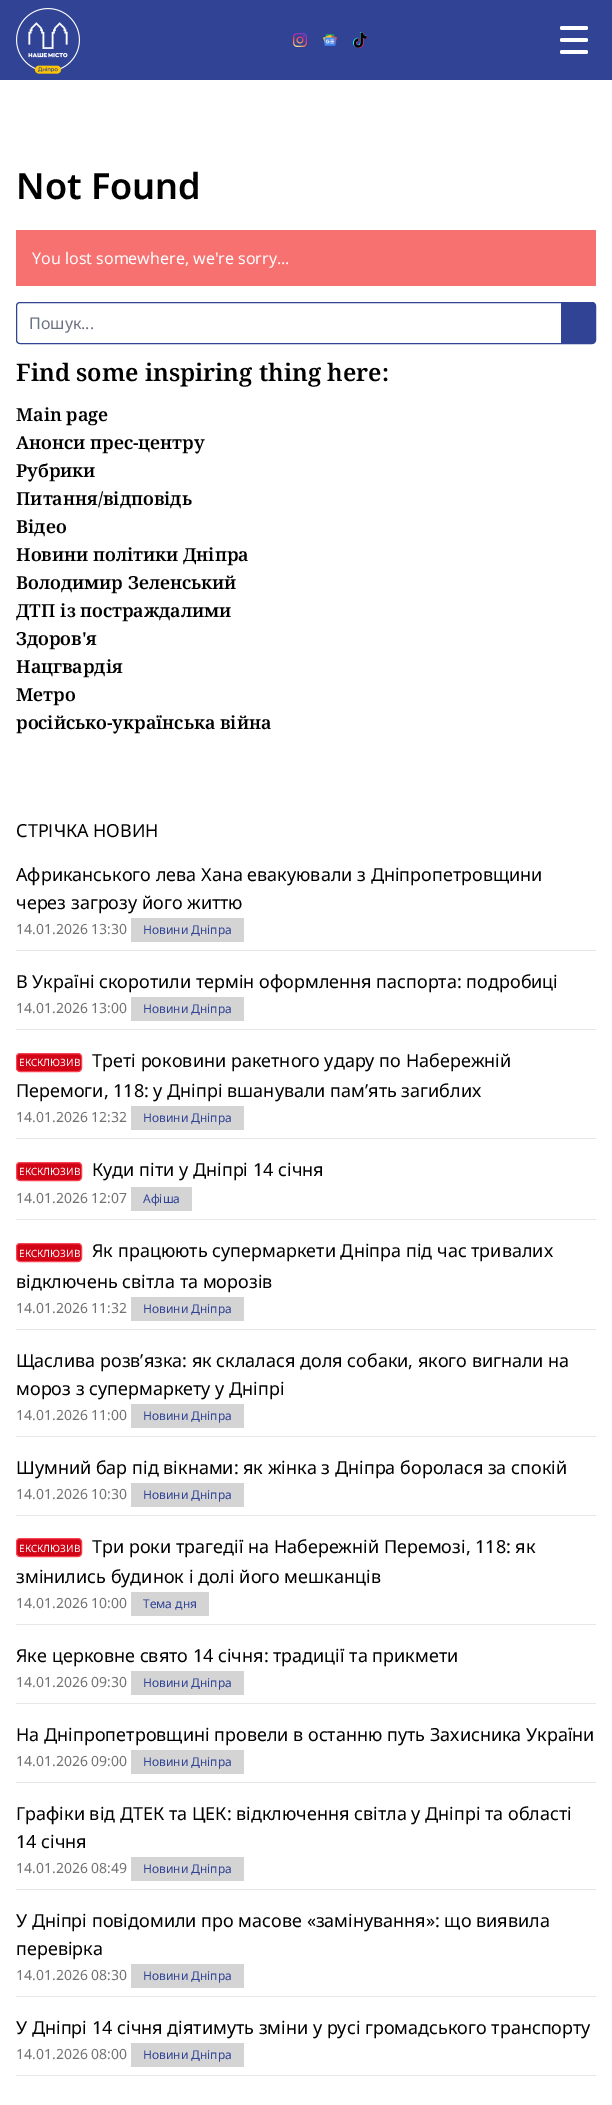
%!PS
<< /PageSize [612 2105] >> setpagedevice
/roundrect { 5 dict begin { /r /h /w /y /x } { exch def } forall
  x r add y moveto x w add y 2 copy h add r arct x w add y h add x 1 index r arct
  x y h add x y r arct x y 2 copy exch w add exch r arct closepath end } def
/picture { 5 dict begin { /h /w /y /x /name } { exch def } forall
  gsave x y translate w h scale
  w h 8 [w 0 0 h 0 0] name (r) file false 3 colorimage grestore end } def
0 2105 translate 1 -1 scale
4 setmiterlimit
1 setgray
0 0 612 2105 rectfill
0.188 0.263 0.58 setrgbcolor
0 0 612 80 rectfill
(img1.rgb) 16 8 64 66 picture
(img2.rgb) 293 33 14 14 picture
(img3.rgb) 323 34 14 12 picture
(img4.rgb) 353 32 14 16 picture
1 setgray
560 26 28 4 2 roundrect fill
560 38 28 4 2 roundrect fill
560 50 28 4 2 roundrect fill
/NotoSans-SemiBold [36 0 0 -36 0 0] selectfont
0 setgray
16 199 moveto (Not Found) show
0.973 0.443 0.443 setrgbcolor
16 230 580 56 rectfill
/NotoSans-Regular [16 0 0 -16 0 0] selectfont
1 setgray
32 264 moveto (You lost somewhere, we're sorry...) show
0.188 0.263 0.58 setrgbcolor
newpath 20 302.5 moveto 561.5 302.5 lineto 561.5 343.5 lineto 20 343.5 lineto 18 343.5 16.5 342 16.5 340 curveto 16.5 306 lineto 16.5 304 18 302.5 20 302.5 curveto closepath stroke
0.42 0.447 0.502 setrgbcolor
29 329 moveto (Пошук...) show
0.188 0.263 0.58 setrgbcolor
newpath 562.5 302.5 moveto 592 302.5 lineto 594 302.5 595.5 304 595.5 306 curveto 595.5 340 lineto 595.5 342 594 343.5 592 343.5 curveto 562.5 343.5 lineto closepath gsave fill grestore
stroke
/NotoSerif-SemiBold [24 0 0 -24 0 0] selectfont
0 setgray
16 381 moveto (Find some inspiring thing here:) show
/NotoSerif-SemiBold [18 0 0 -18 0 0] selectfont
16 421 moveto (Main page) show
16 449 moveto (Анонси прес-центру) show
16 477 moveto (Рубрики) show
16 505 moveto (Питання/відповідь) show
16 533 moveto (Відео) show
16 561 moveto (Новини політики Дніпра) show
16 589 moveto (Володимир Зеленський) show
16 617 moveto (ДТП із постраждалими) show
16 645 moveto (Здоров'я) show
16 673 moveto (Нацгвардія) show
16 701 moveto (Метро) show
16 729 moveto (російсько-українська війна) show
/NotoSans-Regular [18 0 0 -18 0 0] selectfont
16 837 moveto (СТРІЧКА НОВИН) show
0.898 0.906 0.922 setrgbcolor
16 950 580 1 rectfill
0 setgray
16 881 moveto (Африканського лева Хана евакуювали з Дніпропетровщини) show
16 909 moveto (через загрозу його життю) show
/NotoSans-Regular [14 0 0 -14 0 0] selectfont
0.451 setgray
16 934 moveto (14.01.2026 13:30) show
0.831 setgray
131 918 113 24 rectfill
/NotoSans-Regular [12 0 0 -12 0 0] selectfont
0.188 0.263 0.58 setrgbcolor
143 934 moveto (Новини Дніпра) show
0.898 0.906 0.922 setrgbcolor
16 1029 580 1 rectfill
/NotoSans-Regular [18 0 0 -18 0 0] selectfont
0 setgray
16 988 moveto (В Україні скоротили термін оформлення паспорта: подробиці) show
/NotoSans-Regular [14 0 0 -14 0 0] selectfont
0.451 setgray
16 1013 moveto (14.01.2026 13:00) show
0.831 setgray
131 997 113 24 rectfill
/NotoSans-Regular [12 0 0 -12 0 0] selectfont
0.188 0.263 0.58 setrgbcolor
143 1013 moveto (Новини Дніпра) show
0.898 0.906 0.922 setrgbcolor
16 1138 580 1 rectfill
0.82 0.02 0.086 setrgbcolor
16.5 1053.5 65 18 3.5 roundrect gsave fill grestore
0.98 0.267 0.329 setrgbcolor
stroke
/NotoSans-Regular [10 0 0 -10 0 0] selectfont
1 setgray
19 1066 moveto (ЕКСКЛЮЗИВ) show
/NotoSans-Regular [18 0 0 -18 0 0] selectfont
0 setgray
92 1067 moveto (Треті роковини ракетного удару по Набережній) show
16 1097 moveto (Перемоги, 118: у Дніпрі вшанували пам’ять загиблих) show
/NotoSans-Regular [14 0 0 -14 0 0] selectfont
0.451 setgray
16 1122 moveto (14.01.2026 12:32) show
0.831 setgray
131 1106 113 24 rectfill
/NotoSans-Regular [12 0 0 -12 0 0] selectfont
0.188 0.263 0.58 setrgbcolor
143 1122 moveto (Новини Дніпра) show
0.898 0.906 0.922 setrgbcolor
16 1219 580 1 rectfill
0.82 0.02 0.086 setrgbcolor
16.5 1162.5 65 18 3.5 roundrect gsave fill grestore
0.98 0.267 0.329 setrgbcolor
stroke
/NotoSans-Regular [10 0 0 -10 0 0] selectfont
1 setgray
19 1175 moveto (ЕКСКЛЮЗИВ) show
/NotoSans-Regular [18 0 0 -18 0 0] selectfont
0 setgray
92 1176 moveto (Куди піти у Дніпрі 14 січня) show
/NotoSans-Regular [14 0 0 -14 0 0] selectfont
0.451 setgray
16 1203 moveto (14.01.2026 12:07) show
0.831 setgray
131 1187 61 24 rectfill
/NotoSans-Regular [12 0 0 -12 0 0] selectfont
0.188 0.263 0.58 setrgbcolor
143 1203 moveto (Афіша) show
0.898 0.906 0.922 setrgbcolor
16 1329 580 1 rectfill
0.82 0.02 0.086 setrgbcolor
16.5 1243.5 65 18 3.5 roundrect gsave fill grestore
0.98 0.267 0.329 setrgbcolor
stroke
/NotoSans-Regular [10 0 0 -10 0 0] selectfont
1 setgray
19 1257 moveto (ЕКСКЛЮЗИВ) show
/NotoSans-Regular [18 0 0 -18 0 0] selectfont
0 setgray
92 1257 moveto (Як працюють супермаркети Дніпра під час тривалих) show
16 1288 moveto (відключень світла та морозів) show
/NotoSans-Regular [14 0 0 -14 0 0] selectfont
0.451 setgray
16 1313 moveto (14.01.2026 11:32) show
0.831 setgray
131 1297 113 24 rectfill
/NotoSans-Regular [12 0 0 -12 0 0] selectfont
0.188 0.263 0.58 setrgbcolor
143 1313 moveto (Новини Дніпра) show
0.898 0.906 0.922 setrgbcolor
16 1436 580 1 rectfill
/NotoSans-Regular [18 0 0 -18 0 0] selectfont
0 setgray
16 1367 moveto (Щаслива розв’язка: як склалася доля собаки, якого вигнали на) show
16 1395 moveto (мороз з супермаркету у Дніпрі) show
/NotoSans-Regular [14 0 0 -14 0 0] selectfont
0.451 setgray
16 1420 moveto (14.01.2026 11:00) show
0.831 setgray
131 1404 113 24 rectfill
/NotoSans-Regular [12 0 0 -12 0 0] selectfont
0.188 0.263 0.58 setrgbcolor
143 1420 moveto (Новини Дніпра) show
0.898 0.906 0.922 setrgbcolor
16 1515 580 1 rectfill
/NotoSans-Regular [18 0 0 -18 0 0] selectfont
0 setgray
16 1474 moveto (Шумний бар під вікнами: як жінка з Дніпра боролася за спокій) show
/NotoSans-Regular [14 0 0 -14 0 0] selectfont
0.451 setgray
16 1499 moveto (14.01.2026 10:30) show
0.831 setgray
131 1483 113 24 rectfill
/NotoSans-Regular [12 0 0 -12 0 0] selectfont
0.188 0.263 0.58 setrgbcolor
143 1499 moveto (Новини Дніпра) show
0.898 0.906 0.922 setrgbcolor
16 1624 580 1 rectfill
0.82 0.02 0.086 setrgbcolor
16.5 1538.5 65 18 3.5 roundrect gsave fill grestore
0.98 0.267 0.329 setrgbcolor
stroke
/NotoSans-Regular [10 0 0 -10 0 0] selectfont
1 setgray
19 1552 moveto (ЕКСКЛЮЗИВ) show
/NotoSans-Regular [18 0 0 -18 0 0] selectfont
0 setgray
92 1553 moveto (Три роки трагедії на Набережній Перемозі, 118: як) show
16 1583 moveto (змінились будинок і долі його мешканців) show
/NotoSans-Regular [14 0 0 -14 0 0] selectfont
0.451 setgray
16 1608 moveto (14.01.2026 10:00) show
0.831 setgray
131 1592 78 24 rectfill
/NotoSans-Regular [12 0 0 -12 0 0] selectfont
0.188 0.263 0.58 setrgbcolor
143 1608 moveto (Тема дня) show
0.898 0.906 0.922 setrgbcolor
16 1703 580 1 rectfill
/NotoSans-Regular [18 0 0 -18 0 0] selectfont
0 setgray
16 1662 moveto (Яке церковне свято 14 січня: традиції та прикмети) show
/NotoSans-Regular [14 0 0 -14 0 0] selectfont
0.451 setgray
16 1687 moveto (14.01.2026 09:30) show
0.831 setgray
131 1671 113 24 rectfill
/NotoSans-Regular [12 0 0 -12 0 0] selectfont
0.188 0.263 0.58 setrgbcolor
143 1687 moveto (Новини Дніпра) show
0.898 0.906 0.922 setrgbcolor
16 1782 580 1 rectfill
/NotoSans-Regular [18 0 0 -18 0 0] selectfont
0 setgray
16 1741 moveto (На Дніпропетровщині провели в останню путь Захисника України) show
/NotoSans-Regular [14 0 0 -14 0 0] selectfont
0.451 setgray
16 1766 moveto (14.01.2026 09:00) show
0.831 setgray
131 1750 113 24 rectfill
/NotoSans-Regular [12 0 0 -12 0 0] selectfont
0.188 0.263 0.58 setrgbcolor
143 1766 moveto (Новини Дніпра) show
0.898 0.906 0.922 setrgbcolor
16 1889 580 1 rectfill
/NotoSans-Regular [18 0 0 -18 0 0] selectfont
0 setgray
16 1820 moveto (Графіки від ДТЕК та ЦЕК: відключення світла у Дніпрі та області) show
16 1848 moveto (14 січня) show
/NotoSans-Regular [14 0 0 -14 0 0] selectfont
0.451 setgray
16 1873 moveto (14.01.2026 08:49) show
0.831 setgray
131 1857 113 24 rectfill
/NotoSans-Regular [12 0 0 -12 0 0] selectfont
0.188 0.263 0.58 setrgbcolor
143 1873 moveto (Новини Дніпра) show
0.898 0.906 0.922 setrgbcolor
16 1996 580 1 rectfill
/NotoSans-Regular [18 0 0 -18 0 0] selectfont
0 setgray
16 1927 moveto (У Дніпрі повідомили про масове «замінування»: що виявила) show
16 1955 moveto (перевірка) show
/NotoSans-Regular [14 0 0 -14 0 0] selectfont
0.451 setgray
16 1980 moveto (14.01.2026 08:30) show
0.831 setgray
131 1964 113 24 rectfill
/NotoSans-Regular [12 0 0 -12 0 0] selectfont
0.188 0.263 0.58 setrgbcolor
143 1980 moveto (Новини Дніпра) show
0.898 0.906 0.922 setrgbcolor
16 2075 580 1 rectfill
/NotoSans-Regular [18 0 0 -18 0 0] selectfont
0 setgray
16 2034 moveto (У Дніпрі 14 січня діятимуть зміни у русі громадського транспорту) show
/NotoSans-Regular [14 0 0 -14 0 0] selectfont
0.451 setgray
16 2059 moveto (14.01.2026 08:00) show
0.831 setgray
131 2043 113 24 rectfill
/NotoSans-Regular [12 0 0 -12 0 0] selectfont
0.188 0.263 0.58 setrgbcolor
143 2059 moveto (Новини Дніпра) show
showpage
